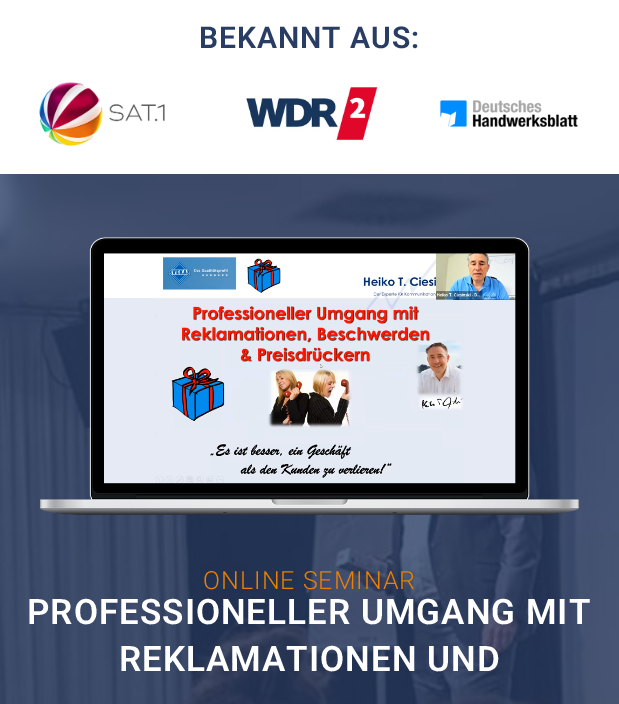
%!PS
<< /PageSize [619 704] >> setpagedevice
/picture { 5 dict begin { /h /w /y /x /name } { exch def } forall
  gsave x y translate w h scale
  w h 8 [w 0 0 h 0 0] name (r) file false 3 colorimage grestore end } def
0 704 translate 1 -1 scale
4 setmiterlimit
1 setgray
0 0 619 704 rectfill
/Roboto-SemiBold [30 0 0 -30 0 0] selectfont
0.157 0.235 0.392 setrgbcolor
199 48 moveto 1 0 (BEKANNT AUS:) ashow
(img1.rgb) 39 82 126 64 picture
(img2.rgb) 246 86 132 56 picture
(img3.rgb) 440 100 138 27 picture
(img4.rgb) 0 174 619 530 picture
(img5.rgb) 40 237 539 278 picture
/Roboto-Light [25 0 0 -25 0 0] selectfont
0.925 0.502 0 setrgbcolor
203 589 moveto 1 0 (ONLINE SEMINAR) ashow
/Roboto-SemiBold [35 0 0 -35 0 0] selectfont
1 setgray
27 624 moveto 1 0 (PROFESSIONELLER UMGANG MIT) ashow
119 671 moveto 1 0 (REKLAMATIONEN UND) ashow
showpage
